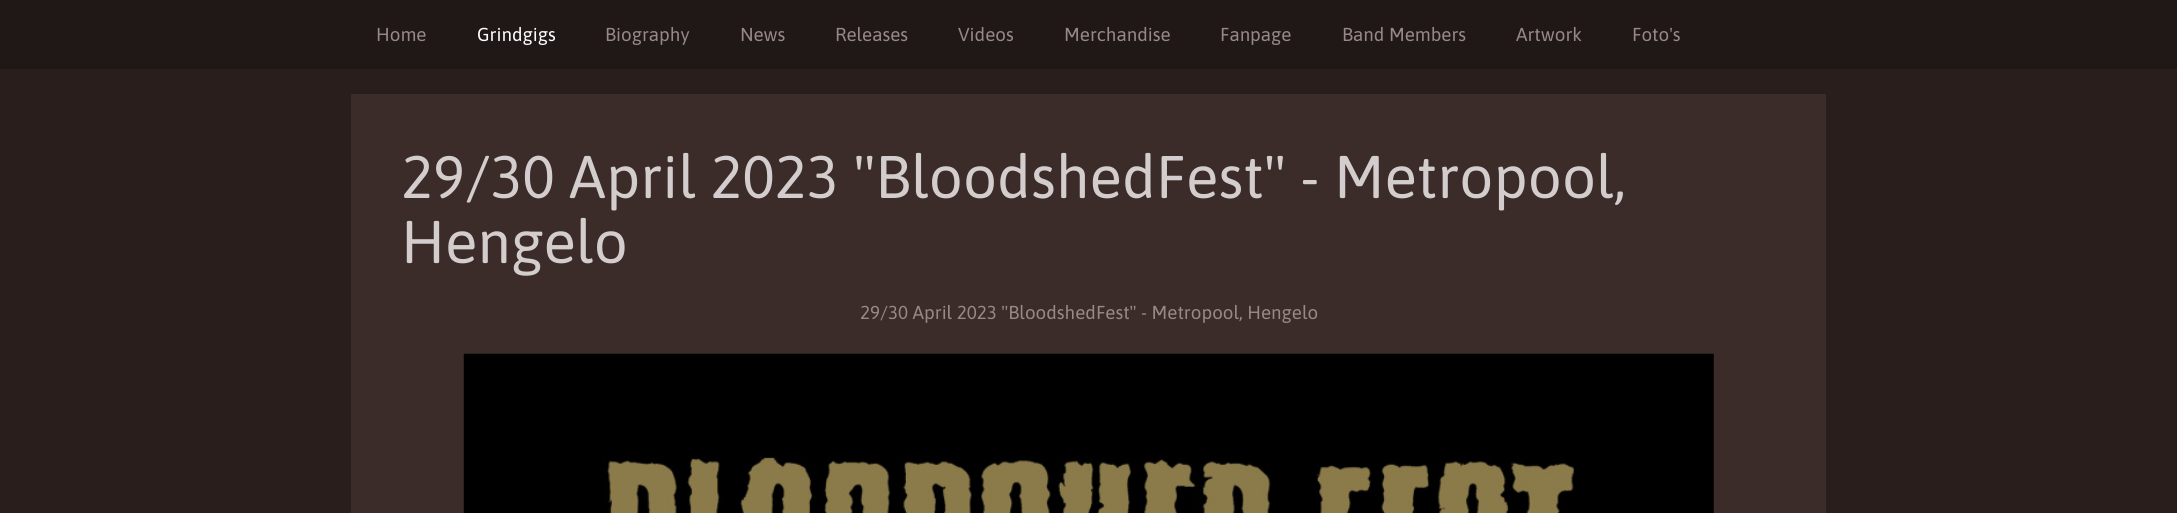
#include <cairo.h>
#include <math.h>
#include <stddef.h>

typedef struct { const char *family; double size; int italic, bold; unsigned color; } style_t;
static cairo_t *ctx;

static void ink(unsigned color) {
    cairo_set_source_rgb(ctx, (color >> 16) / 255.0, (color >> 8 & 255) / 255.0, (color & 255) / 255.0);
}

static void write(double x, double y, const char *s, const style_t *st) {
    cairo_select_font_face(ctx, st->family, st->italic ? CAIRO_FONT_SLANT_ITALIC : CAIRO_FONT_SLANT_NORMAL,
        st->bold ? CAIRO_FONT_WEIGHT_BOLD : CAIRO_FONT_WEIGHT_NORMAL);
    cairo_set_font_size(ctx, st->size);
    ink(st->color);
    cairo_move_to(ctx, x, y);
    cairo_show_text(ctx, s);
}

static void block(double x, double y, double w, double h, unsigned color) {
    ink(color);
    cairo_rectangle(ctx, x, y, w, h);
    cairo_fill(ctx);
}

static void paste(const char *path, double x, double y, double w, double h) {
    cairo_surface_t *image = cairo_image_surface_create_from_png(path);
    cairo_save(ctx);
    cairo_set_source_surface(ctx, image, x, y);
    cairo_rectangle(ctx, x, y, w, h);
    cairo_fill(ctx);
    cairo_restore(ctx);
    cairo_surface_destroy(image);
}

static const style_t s1 = {"Asap", 18.75, 0, 0, 0x988989};
static const style_t s2 = {"Asap", 18.75, 0, 0, 0xffffff};
static const style_t s3 = {"Asap", 60, 0, 0, 0xd3cdcd};

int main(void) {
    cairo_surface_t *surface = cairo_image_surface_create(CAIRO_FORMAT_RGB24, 2177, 513);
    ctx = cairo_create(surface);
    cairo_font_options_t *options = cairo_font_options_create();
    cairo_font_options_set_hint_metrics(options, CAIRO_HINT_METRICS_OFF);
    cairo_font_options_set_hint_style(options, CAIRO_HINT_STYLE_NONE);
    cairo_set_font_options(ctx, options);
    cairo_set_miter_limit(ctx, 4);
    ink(0x291e1c);
    cairo_paint(ctx);
    block(0, 0, 2177, 69, 0x201816);
    write(376, 41, "Home", &s1);
    write(477, 41, "Grindgigs", &s2);
    write(605, 41, "Biography", &s1);
    write(740, 41, "News", &s1);
    write(835, 41, "Releases", &s1);
    write(958, 41, "Videos", &s1);
    write(1064, 41, "Merchandise", &s1);
    write(1220, 41, "Fanpage", &s1);
    write(1342, 41, "Band Members", &s1);
    write(1516, 41, "Artwork", &s1);
    write(1632, 41, "Foto's", &s1);
    block(351, 94, 1475, 419, 0x3b2c29);
    write(401, 198, "29/30 April 2023 \"BloodshedFest\" - Metropool,", &s3);
    write(401, 263, "Hengelo", &s3);
    write(860, 319, "29/30 April 2023 \"BloodshedFest\" - Metropool, Hengelo", &s1);
    paste("pic1.png", 463, 353, 1251, 160);
    cairo_surface_write_to_png(surface, "screenshot.png");
    cairo_font_options_destroy(options);
    cairo_destroy(ctx);
    cairo_surface_destroy(surface);
    return 0;
}
